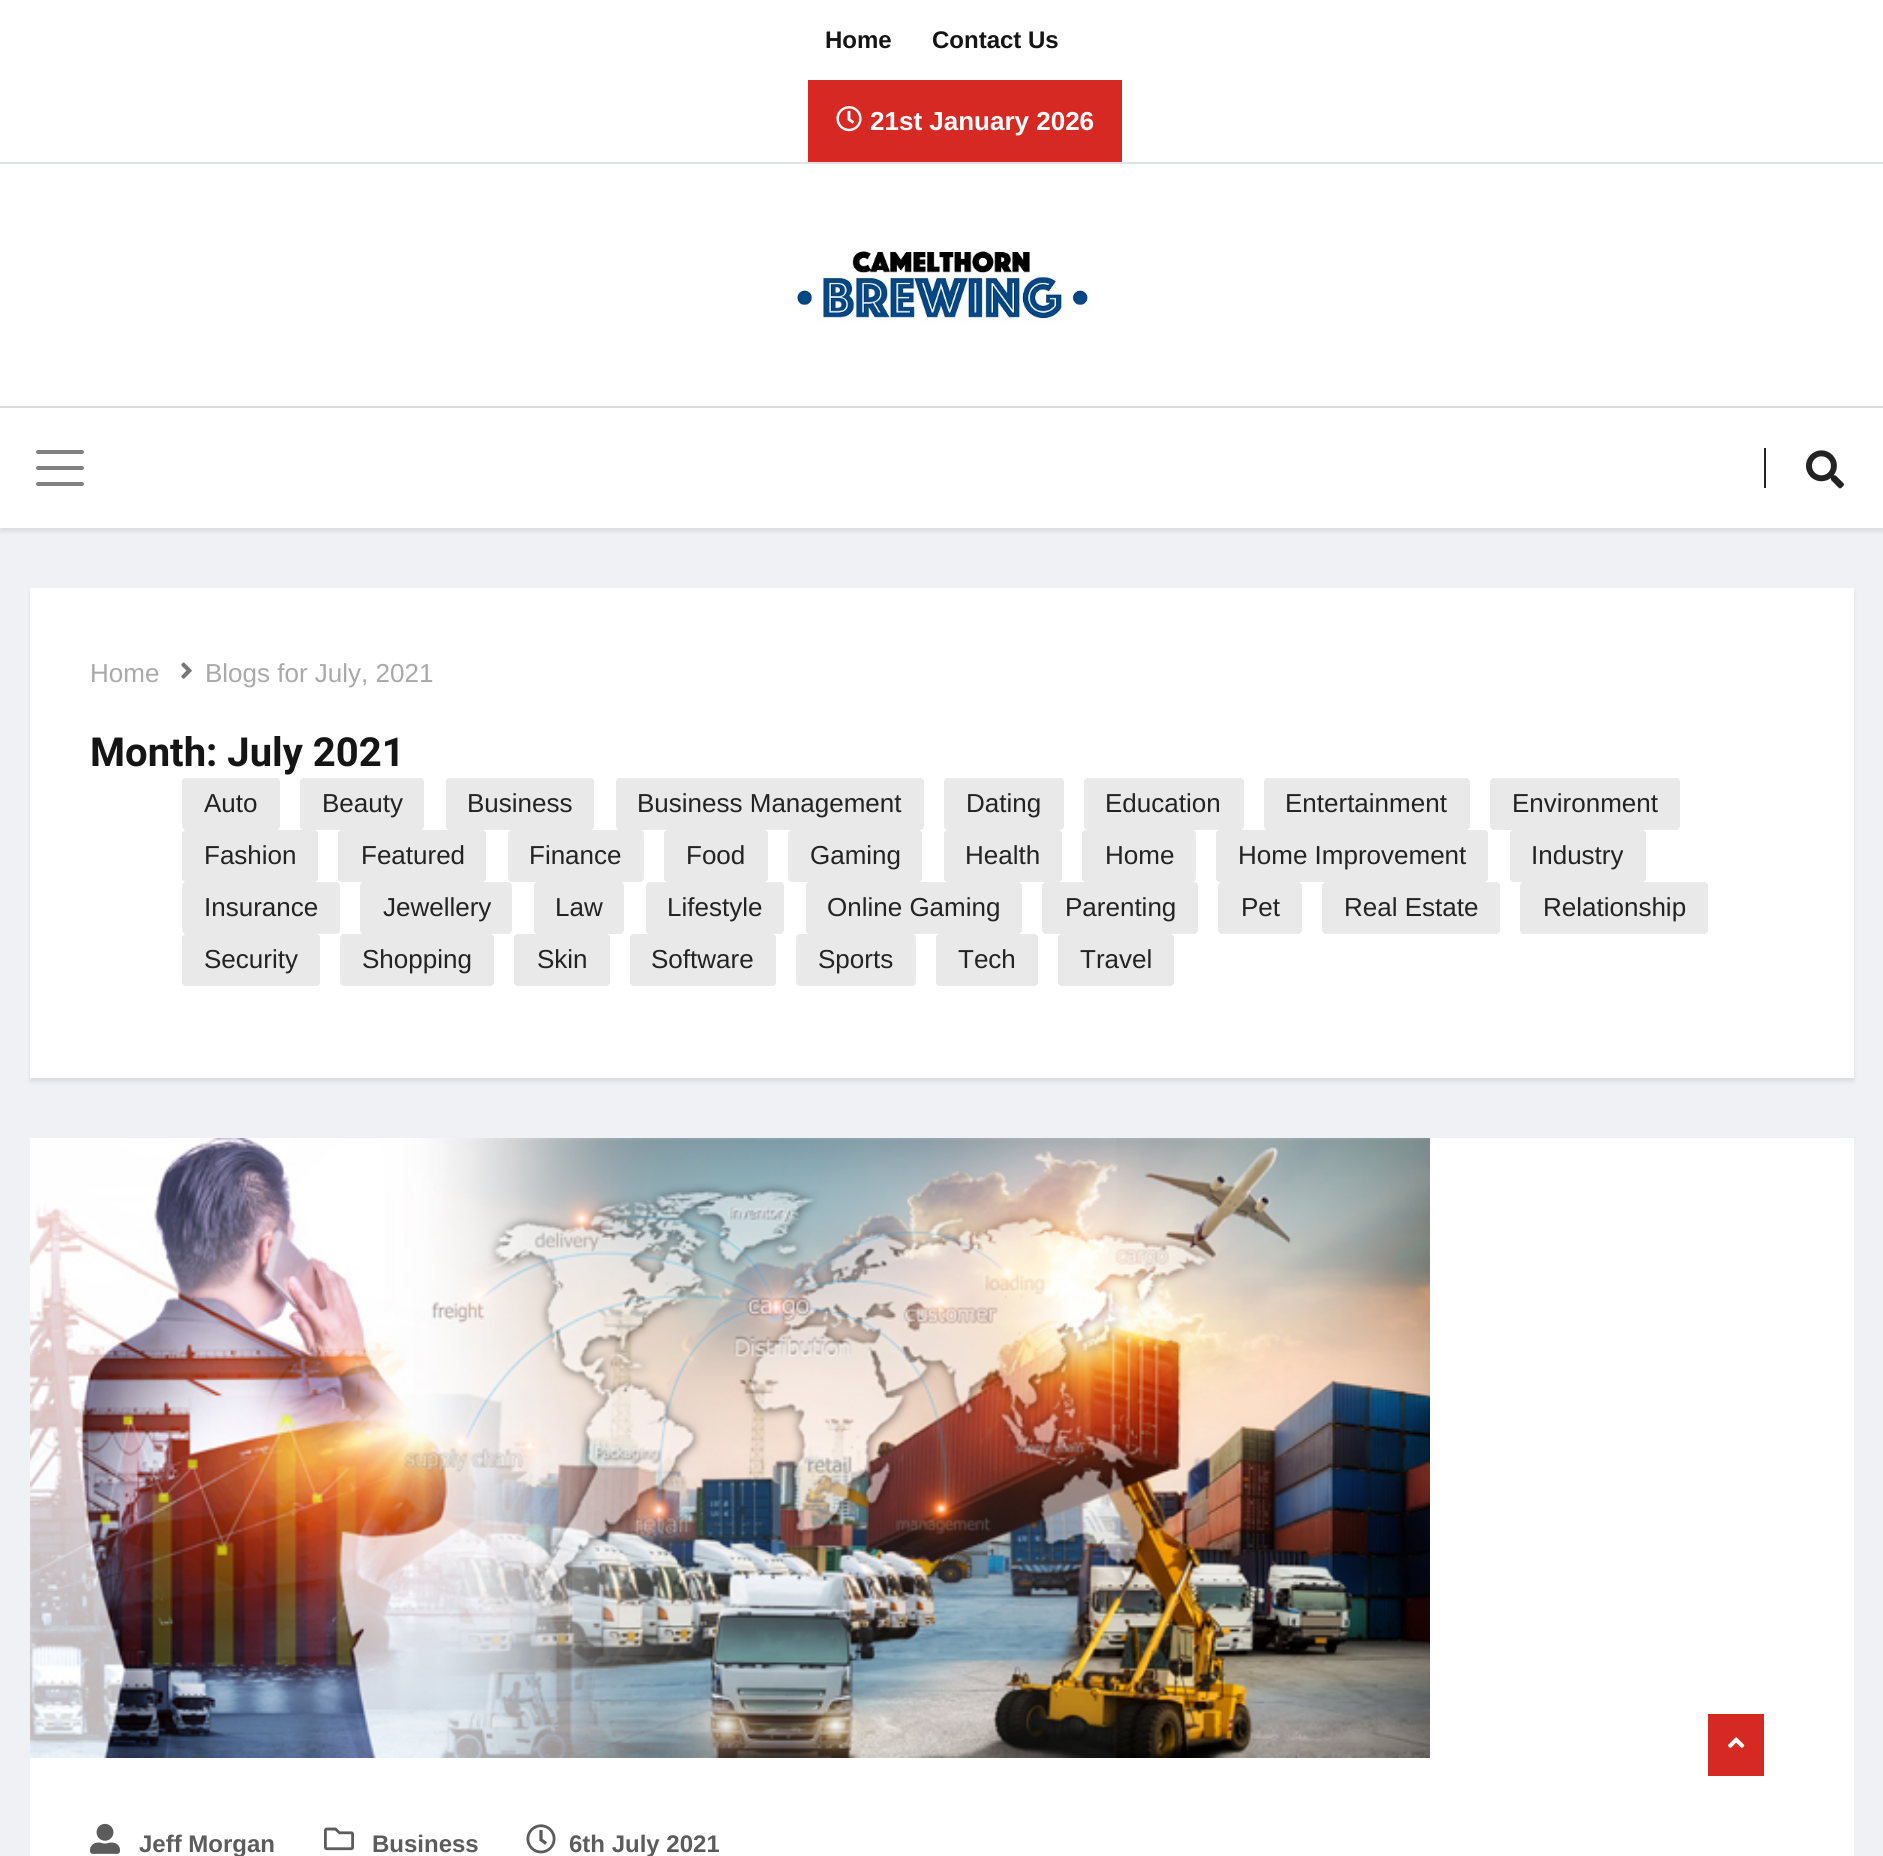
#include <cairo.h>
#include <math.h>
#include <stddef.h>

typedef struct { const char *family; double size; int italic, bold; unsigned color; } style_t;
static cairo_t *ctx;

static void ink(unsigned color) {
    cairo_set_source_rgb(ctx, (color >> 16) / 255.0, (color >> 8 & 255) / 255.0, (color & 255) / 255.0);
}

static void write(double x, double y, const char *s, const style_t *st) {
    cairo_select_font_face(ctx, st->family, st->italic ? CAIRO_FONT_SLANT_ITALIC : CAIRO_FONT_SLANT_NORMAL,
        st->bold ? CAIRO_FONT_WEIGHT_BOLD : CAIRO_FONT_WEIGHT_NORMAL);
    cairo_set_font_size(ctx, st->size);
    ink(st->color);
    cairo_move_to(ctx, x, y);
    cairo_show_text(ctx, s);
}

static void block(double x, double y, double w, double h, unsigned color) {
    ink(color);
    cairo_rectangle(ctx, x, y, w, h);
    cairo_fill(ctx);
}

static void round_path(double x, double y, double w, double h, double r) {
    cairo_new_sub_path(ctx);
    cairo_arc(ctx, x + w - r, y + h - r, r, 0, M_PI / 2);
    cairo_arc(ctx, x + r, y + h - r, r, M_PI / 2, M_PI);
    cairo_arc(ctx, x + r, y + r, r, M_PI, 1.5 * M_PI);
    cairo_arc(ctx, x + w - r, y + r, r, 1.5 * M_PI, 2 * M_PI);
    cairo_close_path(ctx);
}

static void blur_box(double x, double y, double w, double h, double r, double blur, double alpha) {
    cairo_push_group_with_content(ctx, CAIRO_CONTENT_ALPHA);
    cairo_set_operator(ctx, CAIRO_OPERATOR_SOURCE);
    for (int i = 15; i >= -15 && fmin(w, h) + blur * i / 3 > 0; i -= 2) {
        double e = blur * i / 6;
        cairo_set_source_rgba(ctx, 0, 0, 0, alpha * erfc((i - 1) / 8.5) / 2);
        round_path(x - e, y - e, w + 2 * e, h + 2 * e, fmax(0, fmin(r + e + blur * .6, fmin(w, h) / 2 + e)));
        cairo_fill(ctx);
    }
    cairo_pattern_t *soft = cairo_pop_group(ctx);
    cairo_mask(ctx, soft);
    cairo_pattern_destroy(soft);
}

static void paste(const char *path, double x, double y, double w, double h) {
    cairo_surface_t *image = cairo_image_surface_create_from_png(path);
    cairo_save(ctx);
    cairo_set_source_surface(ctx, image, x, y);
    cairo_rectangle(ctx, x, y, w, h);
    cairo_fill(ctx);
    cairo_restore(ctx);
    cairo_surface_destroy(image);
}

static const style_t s1 = {"Arimo", 24, 0, 1, 0x151515};
static const style_t s2 = {"Arimo", 26, 0, 1, 0xffffff};
static const style_t s3 = {"Arimo", 26, 0, 0, 0xa9a9a9};
static const style_t s4 = {"Heebo", 40, 0, 1, 0x151515};
static const style_t s5 = {"Arimo", 26, 0, 0, 0x232323};
static const style_t s6 = {"Arimo", 24, 0, 1, 0x5c5c5c};

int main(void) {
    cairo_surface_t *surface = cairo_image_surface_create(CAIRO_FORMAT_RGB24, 1883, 1856);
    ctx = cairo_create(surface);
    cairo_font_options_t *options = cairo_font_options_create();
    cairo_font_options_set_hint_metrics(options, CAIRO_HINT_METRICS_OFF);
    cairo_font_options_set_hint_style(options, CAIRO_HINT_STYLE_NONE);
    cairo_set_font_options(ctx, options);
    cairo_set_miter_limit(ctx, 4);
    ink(0xf0f1f4);
    cairo_paint(ctx);
    block(0, 0, 1883, 162, 0xffffff);
    write(825, 48, "Home", &s1);
    write(932, 48, "Contact Us", &s1);
    block(808, 80, 314, 82, 0xd72924);
    paste("pic1.png", 836, 106, 26, 26);
    write(870, 130, "21st January 2026", &s2);
    block(0, 164, 1883, 242, 0xffffff);
    block(0, 162, 1883, 2, 0xdee2e6);
    paste("pic2.png", 792, 251, 300, 73);
    ink(0x000000);
    blur_box(0, 410, 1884, 122, 0, 2, 0.08);
    block(0, 408, 1883, 120, 0xffffff);
    block(0, 406, 1883, 2, 0xdddddd);
    cairo_new_path(ctx);
    cairo_move_to(ctx, 38, 452);
    cairo_line_to(ctx, 82, 452);
    cairo_move_to(ctx, 38, 468);
    cairo_line_to(ctx, 82, 468);
    cairo_move_to(ctx, 38, 484);
    cairo_line_to(ctx, 82, 484);
    ink(0x808080);
    cairo_set_line_width(ctx, 4);
    cairo_set_line_cap(ctx, CAIRO_LINE_CAP_ROUND);
    cairo_stroke(ctx);
    block(1764, 448, 2, 40, 0x232323);
    paste("pic3.png", 1806, 450, 38, 39);
    ink(0x000000);
    blur_box(30, 592, 1824, 490, 0, 2, 0.08);
    block(30, 588, 1824, 490, 0xffffff);
    write(90, 682, "Home", &s3);
    paste("pic4.png", 181, 662, 11, 17);
    write(205, 682, "Blogs for July, 2021", &s3);
    write(90, 766, "Month: July 2021", &s4);
    ink(0xe9e9e9);
    round_path(182, 778, 98, 52, 4);
    cairo_fill(ctx);
    write(204, 812, "Auto", &s5);
    ink(0xe9e9e9);
    round_path(300, 778, 124, 52, 4);
    cairo_fill(ctx);
    write(322, 812, "Beauty", &s5);
    ink(0xe9e9e9);
    round_path(446, 778, 148, 52, 4);
    cairo_fill(ctx);
    write(467, 812, "Business", &s5);
    ink(0xe9e9e9);
    round_path(616, 778, 308, 52, 4);
    cairo_fill(ctx);
    write(637, 812, "Business Management", &s5);
    ink(0xe9e9e9);
    round_path(944, 778, 120, 52, 4);
    cairo_fill(ctx);
    write(966, 812, "Dating", &s5);
    ink(0xe9e9e9);
    round_path(1084, 778, 160, 52, 4);
    cairo_fill(ctx);
    write(1105, 812, "Education", &s5);
    ink(0xe9e9e9);
    round_path(1264, 778, 206, 52, 4);
    cairo_fill(ctx);
    write(1285, 812, "Entertainment", &s5);
    ink(0xe9e9e9);
    round_path(1490, 778, 190, 52, 4);
    cairo_fill(ctx);
    write(1512, 812, "Environment", &s5);
    ink(0xe9e9e9);
    round_path(182, 830, 136, 52, 4);
    cairo_fill(ctx);
    write(204, 864, "Fashion", &s5);
    ink(0xe9e9e9);
    round_path(338, 830, 148, 52, 4);
    cairo_fill(ctx);
    write(361, 864, "Featured", &s5);
    ink(0xe9e9e9);
    round_path(508, 830, 136, 52, 4);
    cairo_fill(ctx);
    write(529, 864, "Finance", &s5);
    ink(0xe9e9e9);
    round_path(664, 830, 104, 52, 4);
    cairo_fill(ctx);
    write(686, 864, "Food", &s5);
    ink(0xe9e9e9);
    round_path(788, 830, 134, 52, 4);
    cairo_fill(ctx);
    write(810, 864, "Gaming", &s5);
    ink(0xe9e9e9);
    round_path(944, 830, 118, 52, 4);
    cairo_fill(ctx);
    write(965, 864, "Health", &s5);
    ink(0xe9e9e9);
    round_path(1082, 830, 114, 52, 4);
    cairo_fill(ctx);
    write(1105, 864, "Home", &s5);
    ink(0xe9e9e9);
    round_path(1216, 830, 272, 52, 4);
    cairo_fill(ctx);
    write(1238, 864, "Home Improvement", &s5);
    ink(0xe9e9e9);
    round_path(1510, 830, 136, 52, 4);
    cairo_fill(ctx);
    write(1531, 864, "Industry", &s5);
    ink(0xe9e9e9);
    round_path(182, 882, 158, 52, 4);
    cairo_fill(ctx);
    write(204, 916, "Insurance", &s5);
    ink(0xe9e9e9);
    round_path(360, 882, 152, 52, 4);
    cairo_fill(ctx);
    write(383, 916, "Jewellery", &s5);
    ink(0xe9e9e9);
    round_path(534, 882, 90, 52, 4);
    cairo_fill(ctx);
    write(555, 916, "Law", &s5);
    ink(0xe9e9e9);
    round_path(646, 882, 138, 52, 4);
    cairo_fill(ctx);
    write(667, 916, "Lifestyle", &s5);
    ink(0xe9e9e9);
    round_path(806, 882, 216, 52, 4);
    cairo_fill(ctx);
    write(827, 916, "Online Gaming", &s5);
    ink(0xe9e9e9);
    round_path(1042, 882, 156, 52, 4);
    cairo_fill(ctx);
    write(1065, 916, "Parenting", &s5);
    ink(0xe9e9e9);
    round_path(1218, 882, 84, 52, 4);
    cairo_fill(ctx);
    write(1241, 916, "Pet", &s5);
    ink(0xe9e9e9);
    round_path(1322, 882, 178, 52, 4);
    cairo_fill(ctx);
    write(1344, 916, "Real Estate", &s5);
    ink(0xe9e9e9);
    round_path(1520, 882, 188, 52, 4);
    cairo_fill(ctx);
    write(1543, 916, "Relationship", &s5);
    ink(0xe9e9e9);
    round_path(182, 934, 138, 52, 4);
    cairo_fill(ctx);
    write(204, 968, "Security", &s5);
    ink(0xe9e9e9);
    round_path(340, 934, 154, 52, 4);
    cairo_fill(ctx);
    write(362, 968, "Shopping", &s5);
    ink(0xe9e9e9);
    round_path(514, 934, 96, 52, 4);
    cairo_fill(ctx);
    write(537, 968, "Skin", &s5);
    ink(0xe9e9e9);
    round_path(630, 934, 146, 52, 4);
    cairo_fill(ctx);
    write(651, 968, "Software", &s5);
    ink(0xe9e9e9);
    round_path(796, 934, 120, 52, 4);
    cairo_fill(ctx);
    write(818, 968, "Sports", &s5);
    ink(0xe9e9e9);
    round_path(936, 934, 102, 52, 4);
    cairo_fill(ctx);
    write(958, 968, "Tech", &s5);
    ink(0xe9e9e9);
    round_path(1058, 934, 116, 52, 4);
    cairo_fill(ctx);
    write(1080, 968, "Travel", &s5);
    block(30, 1138, 1824, 718, 0xffffff);
    paste("pic5.png", 30, 1138, 1400, 620);
    paste("pic6.png", 90, 1823, 30, 31);
    write(139, 1852, "Jeff Morgan", &s6);
    paste("pic7.png", 324, 1827, 30, 24);
    write(372, 1852, "Business", &s6);
    paste("pic8.png", 526, 1824, 30, 30);
    write(569, 1852, "6th July 2021", &s6);
    block(1708, 1714, 56, 62, 0xd72924);
    paste("pic9.png", 1728, 1737, 17, 11);
    cairo_surface_write_to_png(surface, "screenshot.png");
    cairo_font_options_destroy(options);
    cairo_destroy(ctx);
    cairo_surface_destroy(surface);
    return 0;
}
